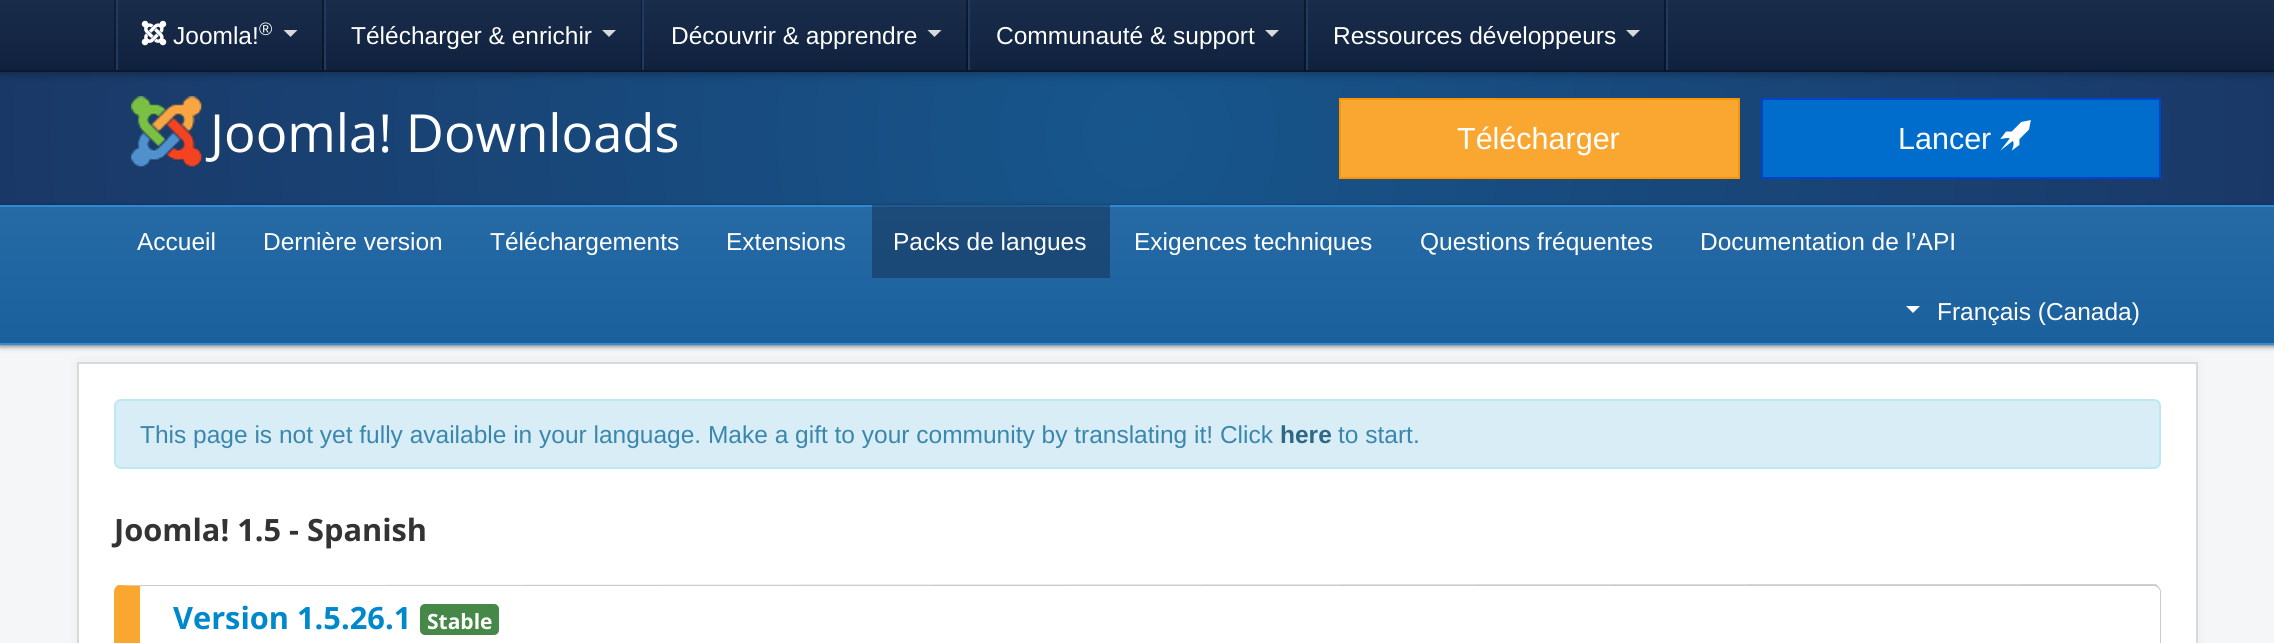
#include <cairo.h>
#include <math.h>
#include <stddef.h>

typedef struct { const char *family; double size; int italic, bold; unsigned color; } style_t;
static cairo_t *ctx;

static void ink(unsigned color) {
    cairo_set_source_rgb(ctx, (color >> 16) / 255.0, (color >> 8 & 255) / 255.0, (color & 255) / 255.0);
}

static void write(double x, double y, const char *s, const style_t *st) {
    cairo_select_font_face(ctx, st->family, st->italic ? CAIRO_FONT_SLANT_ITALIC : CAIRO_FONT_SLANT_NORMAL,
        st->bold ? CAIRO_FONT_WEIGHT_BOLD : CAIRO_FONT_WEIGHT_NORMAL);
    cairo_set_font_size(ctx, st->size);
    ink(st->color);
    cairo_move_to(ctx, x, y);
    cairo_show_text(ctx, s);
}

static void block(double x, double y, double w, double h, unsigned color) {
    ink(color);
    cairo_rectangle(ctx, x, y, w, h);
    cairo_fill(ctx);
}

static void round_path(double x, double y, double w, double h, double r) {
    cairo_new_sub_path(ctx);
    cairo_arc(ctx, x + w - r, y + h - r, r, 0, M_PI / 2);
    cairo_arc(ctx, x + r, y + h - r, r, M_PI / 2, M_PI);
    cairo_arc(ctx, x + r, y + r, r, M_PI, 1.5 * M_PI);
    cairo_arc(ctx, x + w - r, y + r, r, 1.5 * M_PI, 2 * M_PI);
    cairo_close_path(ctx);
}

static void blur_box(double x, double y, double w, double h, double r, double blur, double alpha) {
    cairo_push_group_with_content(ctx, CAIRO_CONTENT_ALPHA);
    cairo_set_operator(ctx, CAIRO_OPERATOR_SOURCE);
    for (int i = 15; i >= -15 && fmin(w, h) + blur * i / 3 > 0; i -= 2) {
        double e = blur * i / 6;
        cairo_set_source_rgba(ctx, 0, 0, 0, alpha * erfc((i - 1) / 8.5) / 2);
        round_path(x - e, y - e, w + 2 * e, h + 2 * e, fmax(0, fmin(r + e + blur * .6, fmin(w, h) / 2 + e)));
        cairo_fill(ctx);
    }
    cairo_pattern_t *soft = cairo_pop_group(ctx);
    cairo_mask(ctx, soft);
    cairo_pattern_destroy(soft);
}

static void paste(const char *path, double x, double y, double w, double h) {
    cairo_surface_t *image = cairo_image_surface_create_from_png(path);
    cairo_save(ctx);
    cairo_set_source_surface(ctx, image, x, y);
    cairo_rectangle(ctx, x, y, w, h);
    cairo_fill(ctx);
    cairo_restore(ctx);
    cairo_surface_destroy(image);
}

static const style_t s1 = {"Liberation Sans", 24.5, 0, 0, 0xffffff};
static const style_t s2 = {"Liberation Sans", 18, 0, 0, 0xffffff};
static const style_t s3 = {"Open Sans", 52.5, 0, 0, 0xffffff};
static const style_t s4 = {"Liberation Sans", 30.5, 0, 0, 0xffffff};
static const style_t s5 = {"Liberation Sans", 24.5, 0, 0, 0x3a87ad};
static const style_t s6 = {"Liberation Sans", 24.5, 0, 1, 0x2d6987};
static const style_t s7 = {"Open Sans", 30.75, 0, 1, 0x333333};
static const style_t s8 = {"Open Sans", 30.75, 0, 1, 0x0088cc};
static const style_t s9 = {"Open Sans", 21, 0, 1, 0xffffff};

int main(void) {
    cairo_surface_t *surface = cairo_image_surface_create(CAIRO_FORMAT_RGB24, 2274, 643);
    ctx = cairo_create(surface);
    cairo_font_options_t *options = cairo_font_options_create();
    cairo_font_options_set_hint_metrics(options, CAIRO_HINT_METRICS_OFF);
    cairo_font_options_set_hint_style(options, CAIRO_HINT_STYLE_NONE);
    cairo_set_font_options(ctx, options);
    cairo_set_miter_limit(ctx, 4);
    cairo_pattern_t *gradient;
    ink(0xf4f6f7);
    cairo_paint(ctx);
    gradient = cairo_pattern_create_radial(1138, 135, 0, 1138, 135, 1140);
    cairo_pattern_add_color_stop_rgba(gradient, 0, 0.09, 0.337, 0.549, 1);
    cairo_pattern_add_color_stop_rgba(gradient, 1, 0.102, 0.22, 0.404, 1);
    cairo_set_source(ctx, gradient);
    cairo_pattern_destroy(gradient);
    cairo_rectangle(ctx, 0, 72, 2274, 133);
    cairo_fill(ctx);
    ink(0x000000);
    blur_box(0, 2, 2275, 72, 0, 4.5, 0.3);
    gradient = cairo_pattern_create_linear(1138, 0, 1138, 70);
    cairo_pattern_add_color_stop_rgba(gradient, 0, 0.098, 0.173, 0.29, 1);
    cairo_pattern_add_color_stop_rgba(gradient, 1, 0.063, 0.133, 0.243, 1);
    cairo_set_source(ctx, gradient);
    cairo_pattern_destroy(gradient);
    cairo_rectangle(ctx, 0, 0, 2274, 70);
    cairo_fill(ctx);
    gradient = cairo_pattern_create_linear(1138, 0, 1138, 70);
    cairo_pattern_add_color_stop_rgba(gradient, 0, 0.059, 0.102, 0.173, 1);
    cairo_pattern_add_color_stop_rgba(gradient, 1, 0.039, 0.078, 0.145, 1);
    cairo_set_source(ctx, gradient);
    cairo_pattern_destroy(gradient);
    cairo_rectangle(ctx, 1664, 0, 2, 70);
    cairo_fill(ctx);
    cairo_rectangle(ctx, 1304, 0, 2, 70);
    cairo_fill(ctx);
    cairo_rectangle(ctx, 966, 0, 2, 70);
    cairo_fill(ctx);
    cairo_rectangle(ctx, 641, 0, 1, 70);
    cairo_fill(ctx);
    gradient = cairo_pattern_create_linear(1138, 0, 1138, 70);
    cairo_pattern_add_color_stop_rgba(gradient, 0, 0.071, 0.122, 0.204, 1);
    cairo_pattern_add_color_stop_rgba(gradient, 1, 0.043, 0.094, 0.169, 1);
    cairo_set_source(ctx, gradient);
    cairo_pattern_destroy(gradient);
    cairo_rectangle(ctx, 114, 0, 2, 70);
    cairo_fill(ctx);
    gradient = cairo_pattern_create_linear(1138, 0, 1138, 70);
    cairo_pattern_add_color_stop_rgba(gradient, 0, 0.059, 0.102, 0.173, 1);
    cairo_pattern_add_color_stop_rgba(gradient, 1, 0.039, 0.078, 0.145, 1);
    cairo_set_source(ctx, gradient);
    cairo_pattern_destroy(gradient);
    cairo_rectangle(ctx, 322, 0, 2, 70);
    cairo_fill(ctx);
    block(0, 70, 2274, 2, 0x0b172a);
    block(116, 0, 2, 70, 0x1e3b63);
    block(324, 0, 2, 70, 0x1e3b63);
    paste("pic1.png", 141, 20, 26, 26);
    write(173, 44, "Joomla!", &s1);
    write(259, 35, "®", &s2);
    ink(0xd9d9d9);
    cairo_new_path(ctx);
    cairo_move_to(ctx, 283.5, 30);
    cairo_line_to(ctx, 297.5, 30);
    cairo_line_to(ctx, 290.5, 37);
    cairo_close_path(ctx);
    cairo_fill(ctx);
    block(642, 0, 2, 70, 0x1e3b63);
    write(351, 44, "Télécharger & enrichir", &s1);
    ink(0xd9d9d9);
    cairo_new_path(ctx);
    cairo_move_to(ctx, 602, 30);
    cairo_line_to(ctx, 616, 30);
    cairo_line_to(ctx, 609, 37);
    cairo_close_path(ctx);
    cairo_fill(ctx);
    block(968, 0, 2, 70, 0x1e3b63);
    write(671, 44, "Découvrir & apprendre", &s1);
    ink(0xd9d9d9);
    cairo_new_path(ctx);
    cairo_move_to(ctx, 927.5, 30);
    cairo_line_to(ctx, 941.5, 30);
    cairo_line_to(ctx, 934.5, 37);
    cairo_close_path(ctx);
    cairo_fill(ctx);
    block(1306, 0, 2, 70, 0x1e3b63);
    write(996, 44, "Communauté & support", &s1);
    ink(0xd9d9d9);
    cairo_new_path(ctx);
    cairo_move_to(ctx, 1265, 30);
    cairo_line_to(ctx, 1279, 30);
    cairo_line_to(ctx, 1272, 37);
    cairo_close_path(ctx);
    cairo_fill(ctx);
    block(1666, 0, 2, 70, 0x1e3b63);
    write(1333, 44, "Ressources développeurs", &s1);
    ink(0xd9d9d9);
    cairo_new_path(ctx);
    cairo_move_to(ctx, 1626, 30);
    cairo_line_to(ctx, 1640, 30);
    cairo_line_to(ctx, 1633, 37);
    cairo_close_path(ctx);
    cairo_fill(ctx);
    paste("pic2.png", 131, 96, 71, 71);
    write(210, 152, "Joomla! Downloads", &s3);
    ink(0xfaa732);
    cairo_rectangle(ctx, 1340, 99, 399, 79);
    cairo_fill_preserve(ctx);
    ink(0xf89406);
    cairo_stroke(ctx);
    write(1457, 149, "Télécharger", &s4);
    ink(0x006dcc);
    cairo_rectangle(ctx, 1762, 99, 398, 79);
    cairo_fill_preserve(ctx);
    ink(0x0044cc);
    cairo_stroke(ctx);
    write(1898, 149, "Lancer", &s4);
    paste("pic3.png", 2000, 120, 31, 31);
    ink(0x000000);
    blur_box(0, 205, 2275, 140, 0, 1, 0.2);
    blur_box(0, 207, 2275, 140, 0, 2.5, 0.4);
    gradient = cairo_pattern_create_linear(1138, 345, 1138, 205);
    cairo_pattern_add_color_stop_rgba(gradient, 0, 0.102, 0.376, 0.612, 1);
    cairo_pattern_add_color_stop_rgba(gradient, 1, 0.149, 0.42, 0.651, 1);
    cairo_set_source(ctx, gradient);
    cairo_pattern_destroy(gradient);
    cairo_rectangle(ctx, 0, 207, 2274, 136);
    cairo_fill(ctx);
    gradient = cairo_pattern_create_linear(1138, 345, 1138, 205);
    cairo_pattern_add_color_stop_rgba(gradient, 0, 0.09, 0.271, 0.455, 1);
    cairo_pattern_add_color_stop_rgba(gradient, 1, 0.114, 0.294, 0.475, 1);
    cairo_set_source(ctx, gradient);
    cairo_pattern_destroy(gradient);
    cairo_rectangle(ctx, 872, 207, 238, 71);
    cairo_fill(ctx);
    block(0, 343, 2274, 2, 0x368ad8);
    block(0, 205, 2274, 2, 0x2f89d3);
    block(872, 205, 238, 2, 0x215a90);
    write(137, 250, "Accueil", &s1);
    write(263, 250, "Dernière version", &s1);
    write(490, 250, "Téléchargements", &s1);
    write(726, 250, "Extensions", &s1);
    write(893, 250, "Packs de langues", &s1);
    write(1134, 250, "Exigences techniques", &s1);
    write(1420, 250, "Questions fréquentes", &s1);
    write(1700, 250, "Documentation de l’API", &s1);
    cairo_new_path(ctx);
    cairo_move_to(ctx, 1906, 306);
    cairo_line_to(ctx, 1920, 306);
    cairo_line_to(ctx, 1913, 313);
    cairo_close_path(ctx);
    cairo_fill(ctx);
    write(1937, 320, "Français (Canada)", &s1);
    ink(0x000000);
    blur_box(77, 362, 2121, 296, 0, 5, 0.05);
    ink(0xffffff);
    cairo_rectangle(ctx, 78, 363, 2119, 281);
    cairo_fill_preserve(ctx);
    ink(0xd9d9d9);
    cairo_stroke(ctx);
    ink(0xd9edf7);
    round_path(115, 400, 2045, 68, 6);
    cairo_fill_preserve(ctx);
    ink(0xbce8f1);
    cairo_stroke(ctx);
    write(140, 443, "This page is not yet fully available in your language. Make a gift to your community by translating it! Click", &s5);
    write(1280, 443, "here", &s6);
    write(1338, 443, "to start.", &s5);
    write(114, 541, "Joomla! 1.5 - Spanish", &s7);
    ink(0xcccccc);
    cairo_new_path(ctx);
    cairo_move_to(ctx, 140, 586);
    cairo_line_to(ctx, 118, 585);
    cairo_line_to(ctx, 2156, 584);
    cairo_line_to(ctx, 2159, 587);
    cairo_line_to(ctx, 2158, 588);
    cairo_curve_to(ctx, 2157, 587, 2155, 586, 2154, 586);
    cairo_close_path(ctx);
    cairo_fill(ctx);
    cairo_new_path(ctx);
    cairo_move_to(ctx, 2159, 587);
    cairo_curve_to(ctx, 2160, 588, 2161, 590, 2161, 592);
    cairo_line_to(ctx, 2161, 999);
    cairo_curve_to(ctx, 2161, 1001, 2160, 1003, 2159, 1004);
    cairo_line_to(ctx, 2158, 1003);
    cairo_line_to(ctx, 2160, 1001);
    cairo_line_to(ctx, 2160, 592);
    cairo_curve_to(ctx, 2160, 590, 2159, 589, 2158, 588);
    cairo_close_path(ctx);
    cairo_fill(ctx);
    ink(0xfaa732);
    cairo_new_path(ctx);
    cairo_move_to(ctx, 120, 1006);
    cairo_curve_to(ctx, 116, 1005, 114, 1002, 114, 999);
    cairo_line_to(ctx, 114, 592);
    cairo_curve_to(ctx, 114, 589, 116, 586, 118, 585);
    cairo_line_to(ctx, 140, 586);
    cairo_line_to(ctx, 140, 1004);
    cairo_line_to(ctx, 148, 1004);
    cairo_close_path(ctx);
    cairo_fill(ctx);
    write(173, 629, "Version 1.5.26.1", &s8);
    ink(0x468847);
    round_path(420, 604, 79, 31, 5);
    cairo_fill(ctx);
    write(427, 629, "Stable", &s9);
    cairo_surface_write_to_png(surface, "screenshot.png");
    cairo_font_options_destroy(options);
    cairo_destroy(ctx);
    cairo_surface_destroy(surface);
    return 0;
}
